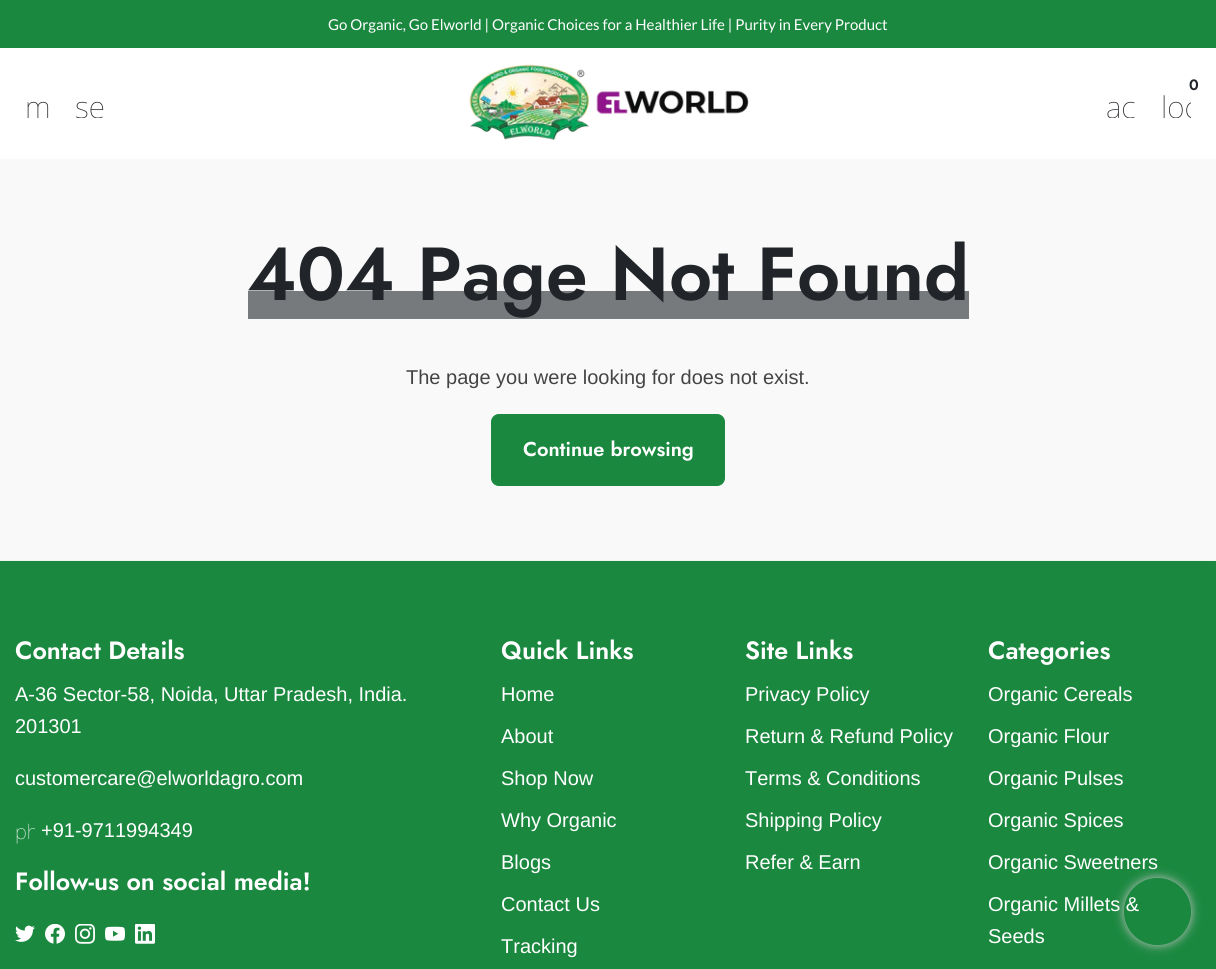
#include <cairo.h>
#include <math.h>
#include <stddef.h>

typedef struct { const char *family; double size; int italic, bold; unsigned color; } style_t;
static cairo_t *ctx;

static void ink(unsigned color) {
    cairo_set_source_rgb(ctx, (color >> 16) / 255.0, (color >> 8 & 255) / 255.0, (color & 255) / 255.0);
}

static void write(double x, double y, const char *s, const style_t *st) {
    cairo_select_font_face(ctx, st->family, st->italic ? CAIRO_FONT_SLANT_ITALIC : CAIRO_FONT_SLANT_NORMAL,
        st->bold ? CAIRO_FONT_WEIGHT_BOLD : CAIRO_FONT_WEIGHT_NORMAL);
    cairo_set_font_size(ctx, st->size);
    ink(st->color);
    cairo_move_to(ctx, x, y);
    cairo_show_text(ctx, s);
}

static void block(double x, double y, double w, double h, unsigned color) {
    ink(color);
    cairo_rectangle(ctx, x, y, w, h);
    cairo_fill(ctx);
}

static void round_path(double x, double y, double w, double h, double r) {
    cairo_new_sub_path(ctx);
    cairo_arc(ctx, x + w - r, y + h - r, r, 0, M_PI / 2);
    cairo_arc(ctx, x + r, y + h - r, r, M_PI / 2, M_PI);
    cairo_arc(ctx, x + r, y + r, r, M_PI, 1.5 * M_PI);
    cairo_arc(ctx, x + w - r, y + r, r, 1.5 * M_PI, 2 * M_PI);
    cairo_close_path(ctx);
}

static void blur_box(double x, double y, double w, double h, double r, double blur, double alpha) {
    cairo_push_group_with_content(ctx, CAIRO_CONTENT_ALPHA);
    cairo_set_operator(ctx, CAIRO_OPERATOR_SOURCE);
    for (int i = 15; i >= -15 && fmin(w, h) + blur * i / 3 > 0; i -= 2) {
        double e = blur * i / 6;
        cairo_set_source_rgba(ctx, 0, 0, 0, alpha * erfc((i - 1) / 8.5) / 2);
        round_path(x - e, y - e, w + 2 * e, h + 2 * e, fmax(0, fmin(r + e + blur * .6, fmin(w, h) / 2 + e)));
        cairo_fill(ctx);
    }
    cairo_pattern_t *soft = cairo_pop_group(ctx);
    cairo_mask(ctx, soft);
    cairo_pattern_destroy(soft);
}

static void paste(const char *path, double x, double y, double w, double h) {
    cairo_surface_t *image = cairo_image_surface_create_from_png(path);
    cairo_save(ctx);
    cairo_set_source_surface(ctx, image, x, y);
    cairo_rectangle(ctx, x, y, w, h);
    cairo_fill(ctx);
    cairo_restore(ctx);
    cairo_surface_destroy(image);
}

static const style_t s1 = {"Lato", 15, 0, 0, 0xffffff};
static const style_t s2 = {"Noto Sans Thin", 30, 0, 0, 0x212529};
static const style_t s3 = {"Jost SemiBold", 15, 0, 0, 0x212529};
static const style_t s4 = {"Jost SemiBold", 75, 0, 0, 0x212529};
static const style_t s5 = {"Liberation Sans", 20, 0, 0, 0x444444};
static const style_t s6 = {"Jost SemiBold", 20, 0, 0, 0xffffff};
static const style_t s7 = {"Jost SemiBold", 25, 0, 0, 0xffffff};
static const style_t s8 = {"Liberation Sans", 20, 0, 0, 0xffffff};
static const style_t s9 = {"Noto Sans Thin", 20, 0, 0, 0xffffff};

int main(void) {
    cairo_surface_t *surface = cairo_image_surface_create(CAIRO_FORMAT_RGB24, 1216, 969);
    ctx = cairo_create(surface);
    cairo_font_options_t *options = cairo_font_options_create();
    cairo_font_options_set_hint_metrics(options, CAIRO_HINT_METRICS_OFF);
    cairo_font_options_set_hint_style(options, CAIRO_HINT_STYLE_NONE);
    cairo_set_font_options(ctx, options);
    cairo_set_miter_limit(ctx, 4);
    ink(0xf9f9f9);
    cairo_paint(ctx);
    block(0, 0, 1216, 48, 0x1a883f);
    write(328, 30, "Go Organic, Go Elworld | Organic Choices for a Healthier Life | Purity in Every Product", &s1);
    block(0, 48, 1216, 111, 0xffffff);
    write(25, 118, "m", &s2);
    cairo_save(ctx);
    cairo_rectangle(ctx, 75, 88, 30, 30);
    cairo_clip(ctx);
    write(75, 118, "se", &s2);
    cairo_restore(ctx);
    paste("pic1.png", 469, 64, 280, 76);
    cairo_save(ctx);
    cairo_rectangle(ctx, 1106, 88, 30, 30);
    cairo_clip(ctx);
    write(1106, 118, "ac", &s2);
    cairo_restore(ctx);
    write(1189, 90, "0", &s3);
    cairo_save(ctx);
    cairo_rectangle(ctx, 1161, 88, 30, 30);
    cairo_clip(ctx);
    write(1161, 118, "loc", &s2);
    cairo_restore(ctx);
    block(248, 291, 721, 28, 0x777a7c);
    write(247, 300, "404 Page Not Found", &s4);
    write(406, 384, "The page you were looking for does not exist.", &s5);
    ink(0x1a883f);
    round_path(491.5, 414.5, 233, 71, 7.5);
    cairo_fill_preserve(ctx);
    cairo_set_line_width(ctx, 1);
    cairo_stroke(ctx);
    write(523, 456, "Continue browsing", &s6);
    block(0, 561, 1216, 408, 0x1a883f);
    paste("pic2.png", 0, 560, 1216, 1);
    write(15, 659, "Contact Details", &s7);
    write(15, 701, "A-36 Sector-58, Noida, Uttar Pradesh, India.", &s8);
    write(15, 733, "201301", &s8);
    write(15, 785, "customercare@elworldagro.com", &s8);
    cairo_save(ctx);
    cairo_rectangle(ctx, 15, 814, 20, 32);
    cairo_clip(ctx);
    write(15, 839, "ph", &s9);
    cairo_restore(ctx);
    write(41, 837, "+91-9711994349", &s8);
    write(15, 890, "Follow-us on social media!", &s7);
    paste("pic3.png", 15, 925, 20, 17);
    paste("pic4.png", 45, 924, 20, 20);
    paste("pic5.png", 75, 924, 20, 20);
    paste("pic6.png", 105, 926, 20, 15);
    paste("pic7.png", 135, 924, 20, 20);
    write(501, 659, "Quick Links", &s7);
    write(501, 701, "Home", &s8);
    write(501, 743, "About", &s8);
    write(501, 785, "Shop Now", &s8);
    write(501, 827, "Why Organic", &s8);
    write(501, 869, "Blogs", &s8);
    write(501, 911, "Contact Us", &s8);
    write(501, 953, "Tracking", &s8);
    write(745, 659, "Site Links", &s7);
    write(745, 701, "Privacy Policy", &s8);
    write(745, 743, "Return & Refund Policy", &s8);
    write(745, 785, "Terms & Conditions", &s8);
    write(745, 827, "Shipping Policy", &s8);
    write(745, 869, "Refer & Earn", &s8);
    write(988, 659, "Categories", &s7);
    write(988, 701, "Organic Cereals", &s8);
    write(988, 743, "Organic Flour", &s8);
    write(988, 785, "Organic Pulses", &s8);
    write(988, 827, "Organic Spices", &s8);
    write(988, 869, "Organic Sweetners", &s8);
    write(988, 911, "Organic Millets &", &s8);
    write(988, 943, "Seeds", &s8);
    cairo_save(ctx);
    cairo_set_fill_rule(ctx, CAIRO_FILL_RULE_EVEN_ODD);
    cairo_new_path(ctx);
    cairo_move_to(ctx, 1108, 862);
    cairo_line_to(ctx, 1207, 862);
    cairo_line_to(ctx, 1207, 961);
    cairo_line_to(ctx, 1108, 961);
    cairo_close_path(ctx);
    cairo_move_to(ctx, 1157.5, 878);
    cairo_curve_to(ctx, 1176, 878, 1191, 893, 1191, 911.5);
    cairo_curve_to(ctx, 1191, 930, 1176, 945, 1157.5, 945);
    cairo_curve_to(ctx, 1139, 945, 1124, 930, 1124, 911.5);
    cairo_curve_to(ctx, 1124, 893, 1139, 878, 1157.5, 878);
    cairo_close_path(ctx);
    cairo_clip(ctx);
    ink(0xc2c2c2);
    blur_box(1124, 878, 67, 67, 33.5, 5, 1);
    cairo_restore(ctx);
    cairo_surface_write_to_png(surface, "screenshot.png");
    cairo_font_options_destroy(options);
    cairo_destroy(ctx);
    cairo_surface_destroy(surface);
    return 0;
}
